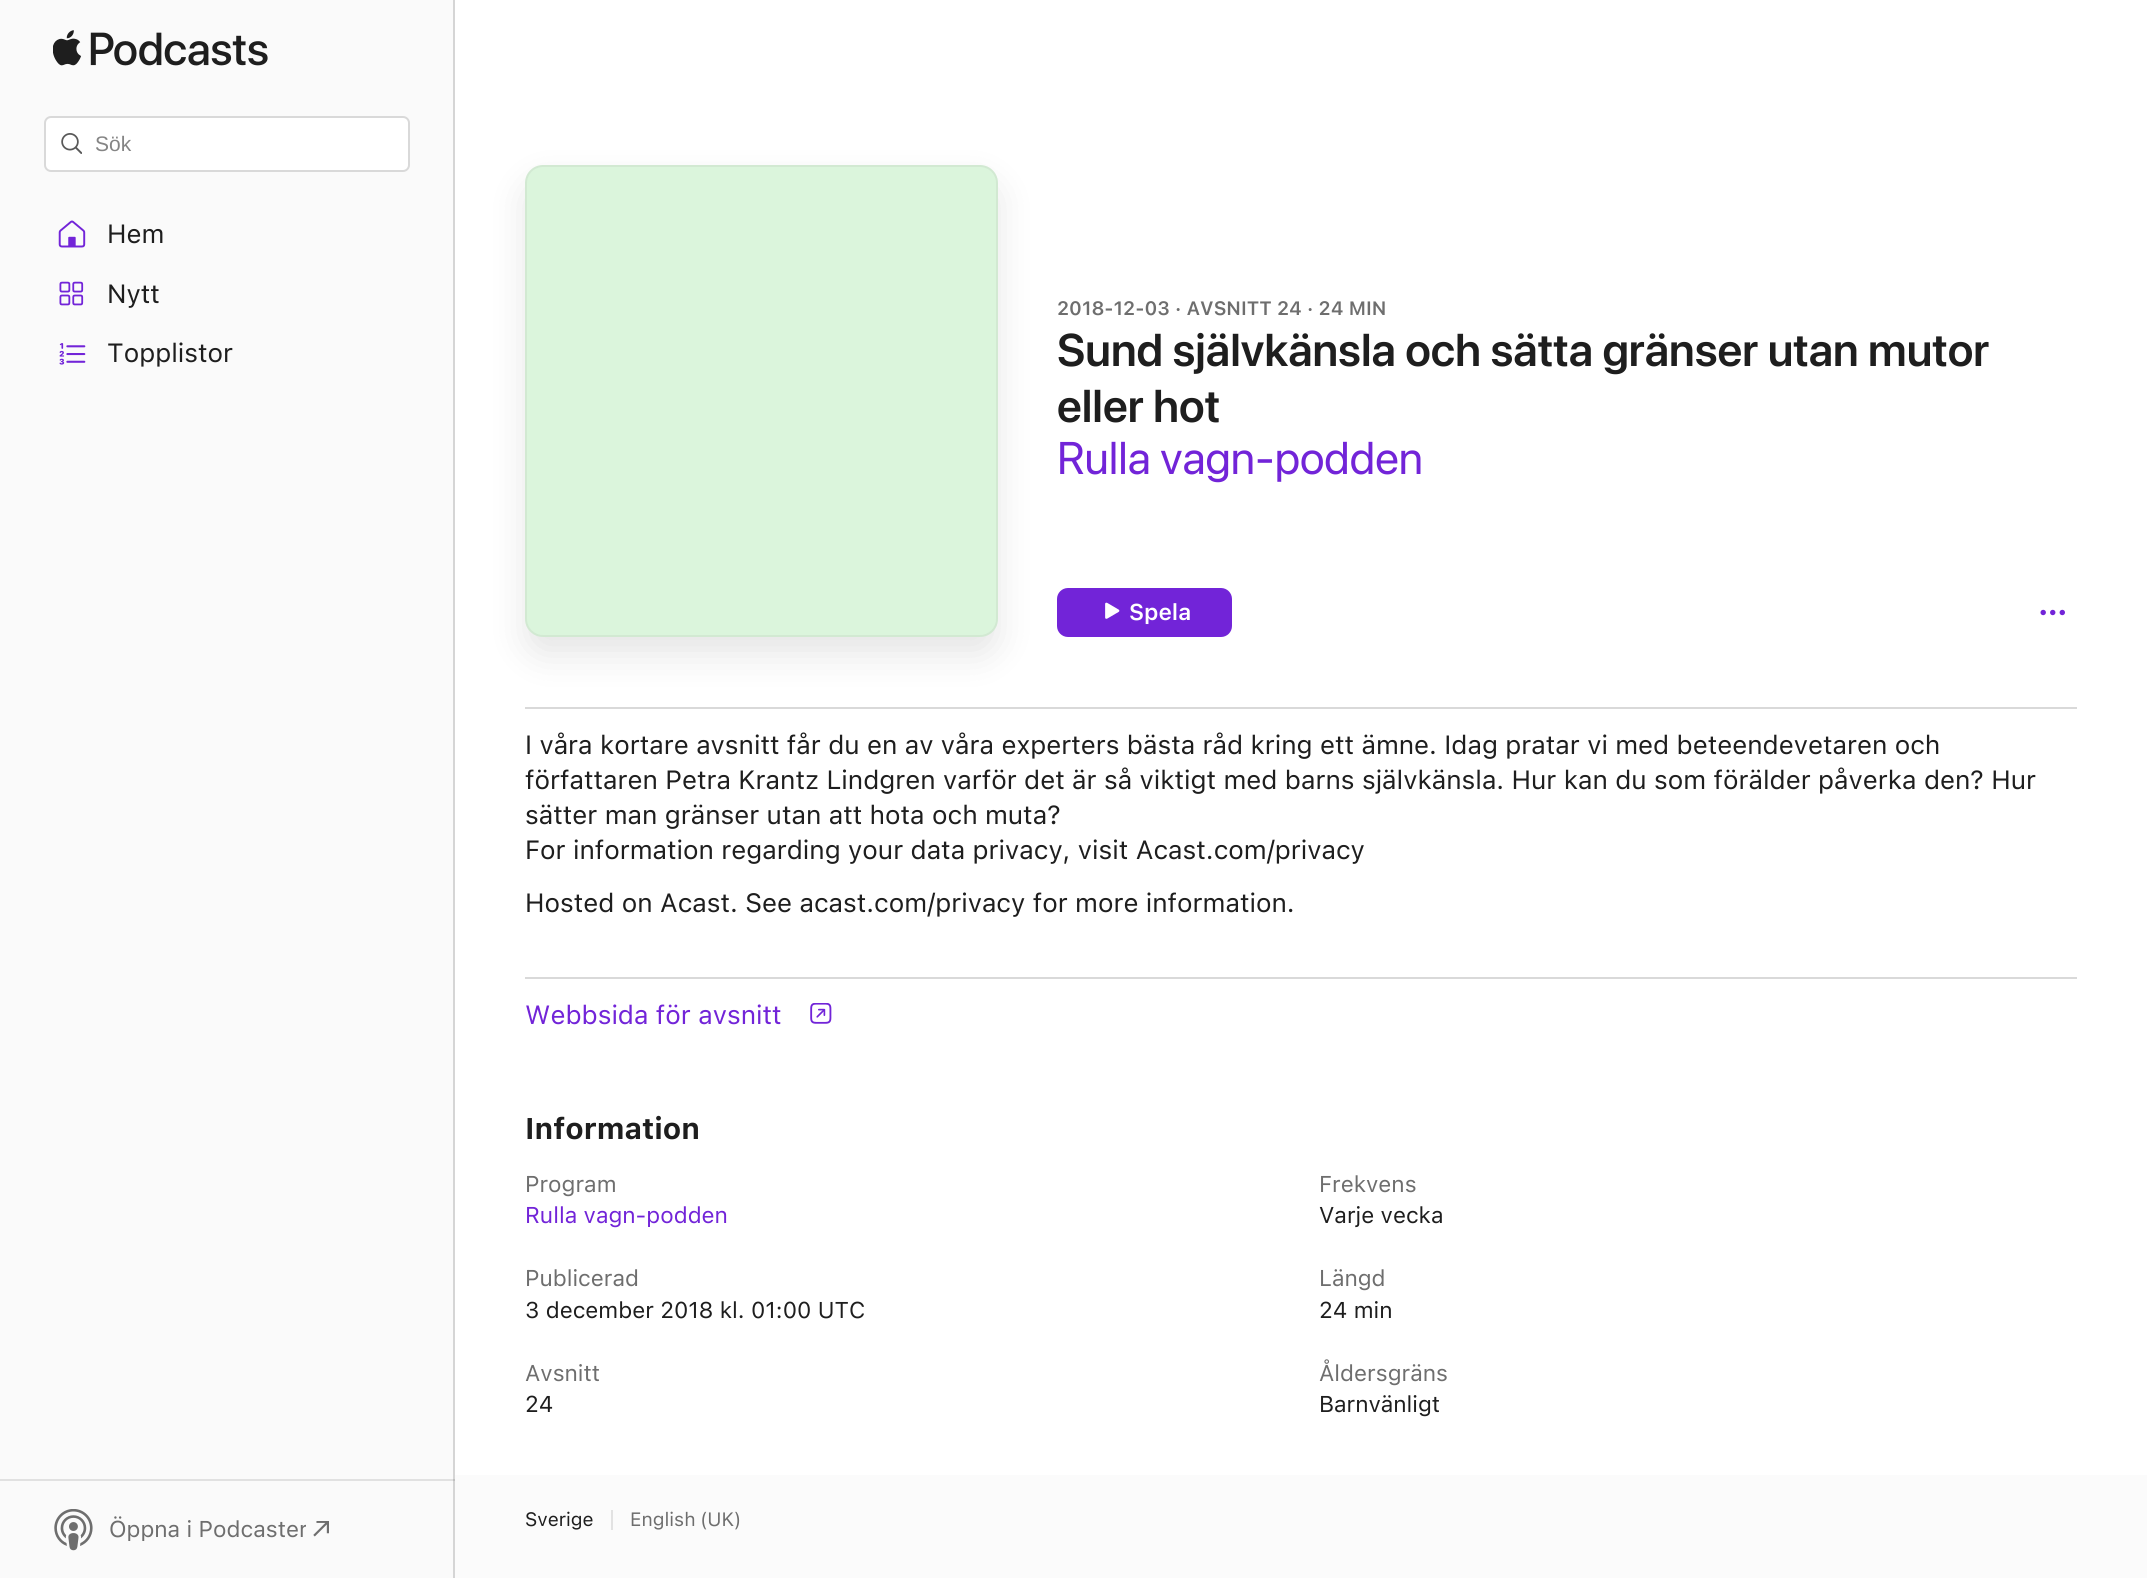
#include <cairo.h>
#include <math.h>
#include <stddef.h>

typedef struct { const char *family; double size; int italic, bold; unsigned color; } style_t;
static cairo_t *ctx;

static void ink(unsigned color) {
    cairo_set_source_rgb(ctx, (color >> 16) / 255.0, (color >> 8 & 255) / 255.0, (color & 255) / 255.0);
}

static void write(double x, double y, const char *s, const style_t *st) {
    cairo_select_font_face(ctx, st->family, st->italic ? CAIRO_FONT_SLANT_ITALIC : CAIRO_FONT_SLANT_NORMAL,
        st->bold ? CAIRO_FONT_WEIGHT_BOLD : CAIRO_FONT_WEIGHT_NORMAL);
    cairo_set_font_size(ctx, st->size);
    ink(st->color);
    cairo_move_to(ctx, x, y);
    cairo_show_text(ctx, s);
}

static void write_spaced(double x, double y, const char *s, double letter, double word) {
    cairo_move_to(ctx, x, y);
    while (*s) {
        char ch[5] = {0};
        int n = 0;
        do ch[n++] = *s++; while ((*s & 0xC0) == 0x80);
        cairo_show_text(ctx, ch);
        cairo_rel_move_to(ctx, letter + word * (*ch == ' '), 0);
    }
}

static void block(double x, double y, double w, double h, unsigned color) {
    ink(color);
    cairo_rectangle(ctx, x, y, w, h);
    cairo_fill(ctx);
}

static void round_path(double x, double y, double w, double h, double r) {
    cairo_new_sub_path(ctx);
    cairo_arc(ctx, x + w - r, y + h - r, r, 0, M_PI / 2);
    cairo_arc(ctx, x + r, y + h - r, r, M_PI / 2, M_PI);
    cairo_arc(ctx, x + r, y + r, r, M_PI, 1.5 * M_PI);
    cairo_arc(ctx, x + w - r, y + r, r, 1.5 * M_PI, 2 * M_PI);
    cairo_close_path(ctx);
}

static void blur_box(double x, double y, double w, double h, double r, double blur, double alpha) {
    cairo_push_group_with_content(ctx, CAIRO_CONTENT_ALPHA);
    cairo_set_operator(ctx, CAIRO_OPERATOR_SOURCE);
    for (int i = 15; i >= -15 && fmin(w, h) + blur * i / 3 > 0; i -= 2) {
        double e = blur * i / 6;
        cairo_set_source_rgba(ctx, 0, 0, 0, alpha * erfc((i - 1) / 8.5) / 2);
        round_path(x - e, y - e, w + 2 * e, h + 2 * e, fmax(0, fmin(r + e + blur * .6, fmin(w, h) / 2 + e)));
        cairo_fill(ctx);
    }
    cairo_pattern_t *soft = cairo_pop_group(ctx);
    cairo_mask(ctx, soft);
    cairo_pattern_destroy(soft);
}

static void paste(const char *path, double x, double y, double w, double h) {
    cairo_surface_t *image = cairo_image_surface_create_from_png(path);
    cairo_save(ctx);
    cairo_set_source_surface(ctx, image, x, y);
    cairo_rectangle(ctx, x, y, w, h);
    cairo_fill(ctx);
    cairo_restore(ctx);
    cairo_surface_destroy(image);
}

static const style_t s1 = {"Liberation Sans", 21, 0, 0, 0x858585};
static const style_t s2 = {"SF", 26.25, 0, 0, 0x1e1e1e};
static const style_t s3 = {"SF", 22.75, 0, 0, 0x6e6e6e};
static const style_t s4 = {"SF SemiBold", 19.25, 0, 0, 0x6e6e6e};
static const style_t s5 = {"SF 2 SemiBold", 45.5, 0, 0, 0x1e1e1e};
static const style_t s6 = {"SF 2", 45.5, 0, 0, 0x7224d8};
static const style_t s7 = {"SF SemiBold", 22.75, 0, 0, 0xffffff};
static const style_t s8 = {"SF", 26.25, 0, 0, 0x7224d8};
static const style_t s9 = {"SF", 29.75, 0, 1, 0x1e1e1e};
static const style_t s10 = {"SF", 22.75, 0, 0, 0x7224d8};
static const style_t s11 = {"SF", 22.75, 0, 0, 0x1e1e1e};
static const style_t s12 = {"SF", 19.25, 0, 0, 0x1e1e1e};

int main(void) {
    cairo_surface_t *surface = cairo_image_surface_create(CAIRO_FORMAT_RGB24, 2147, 1578);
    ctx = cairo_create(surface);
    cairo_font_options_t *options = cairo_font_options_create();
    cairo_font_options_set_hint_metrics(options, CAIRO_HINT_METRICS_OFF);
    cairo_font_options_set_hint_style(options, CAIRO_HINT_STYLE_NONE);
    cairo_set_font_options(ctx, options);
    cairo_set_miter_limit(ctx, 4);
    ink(0xffffff);
    cairo_paint(ctx);
    block(0, 0, 453, 1578, 0xfafafa);
    block(0, 1479, 455, 2, 0xe1e1e1);
    block(453, 0, 2, 1578, 0xd5d5d5);
    block(453, 1479, 2, 2, 0xc0c0c0);
    paste("pic1.png", 53, 30, 215, 36);
    ink(0xffffff);
    round_path(45, 117, 364, 54, 6);
    cairo_fill_preserve(ctx);
    ink(0xd9d9d9);
    cairo_stroke(ctx);
    paste("pic2.png", 61, 133, 21, 21);
    write(95, 151, "Sök", &s1);
    paste("pic3.png", 58, 220, 28, 28);
    write(107, 243, "Hem", &s2);
    paste("pic4.png", 59, 281, 25, 25);
    write(107, 303, "Nytt", &s2);
    paste("pic5.png", 59, 343, 27, 22);
    write(107, 362, "Topplistor", &s2);
    paste("pic6.png", 54, 1509, 39, 42);
    cairo_save(ctx);
    cairo_rectangle(ctx, 109, 1512, 197, 35);
    cairo_clip(ctx);
    write(109, 1537, "Öppna i Podcaster", &s3);
    cairo_restore(ctx);
    paste("pic7.png", 313, 1521, 16, 16);
    block(525, 707, 1552, 2, 0xd9d9d9);
    ink(0x000000);
    blur_box(525, 182, 473, 473, 18, 17.5, 0.1);
    ink(0xdbf5dc);
    round_path(525, 165, 473, 472, 18);
    cairo_fill(ctx);
    round_path(526, 166, 471, 470, 17);
    cairo_set_source_rgba(ctx, 0.502, 0.502, 0.502, 0.1);
    cairo_stroke(ctx);
    write(1057, 315, "2018-12-03 · AVSNITT 24 · 24 MIN", &s4);
    write(1057, 366, "Sund självkänsla och sätta gränser utan mutor", &s5);
    write(1057, 422, "eller hot", &s5);
    write(1057, 474, "Rulla vagn-podden", &s6);
    round_path(1057, 588, 175, 49, 11);
    cairo_fill(ctx);
    paste("pic8.png", 1105, 602, 15, 17);
    write(1129, 620, "Spela", &s7);
    paste("pic9.png", 2040, 609, 25, 7);
    write(525, 754, "I våra kortare avsnitt får du en av våra experters bästa råd kring ett ämne. Idag pratar vi med beteendevetaren och", &s2);
    write(525, 789, "författaren Petra Krantz Lindgren varför det är så viktigt med barns självkänsla. Hur kan du som förälder påverka den? Hur", &s2);
    write(525, 824, "sätter man gränser utan att hota och muta?", &s2);
    write(525, 859, "For information regarding your data privacy, visit Acast.com/privacy", &s2);
    write(525, 912, "Hosted on Acast. See acast.com/privacy for more information.", &s2);
    block(525, 977, 1552, 2, 0xd9d9d9);
    write(525, 1024, "Webbsida för avsnitt", &s8);
    paste("pic10.png", 810, 1003, 22, 21);
    write(525, 1139, "Information", &s9);
    write(525, 1192, "Program", &s3);
    write(525, 1223, "Rulla vagn-podden", &s10);
    write(1319, 1192, "Frekvens", &s3);
    write(1319, 1223, "Varje vecka", &s11);
    write(525, 1286, "Publicerad", &s3);
    write(525, 1318, "3 december 2018 kl. 01:00 UTC", &s11);
    write(1319, 1286, "Längd", &s3);
    write(1319, 1318, "24 min", &s11);
    write(525, 1381, "Avsnitt", &s3);
    write(525, 1412, "24", &s11);
    write(1319, 1381, "Åldersgräns", &s3);
    write(1319, 1412, "Barnvänligt", &s11);
    block(455, 1475, 1692, 103, 0xfbfbfb);
    write(525, 1526, "Sverige", &s12);
    block(611, 1510, 2, 20, 0xe2e2e2);
    ink(0x6e6e6e);
    write_spaced(630, 1526, "English (UK)", 0, -1);
    cairo_surface_write_to_png(surface, "screenshot.png");
    cairo_font_options_destroy(options);
    cairo_destroy(ctx);
    cairo_surface_destroy(surface);
    return 0;
}
